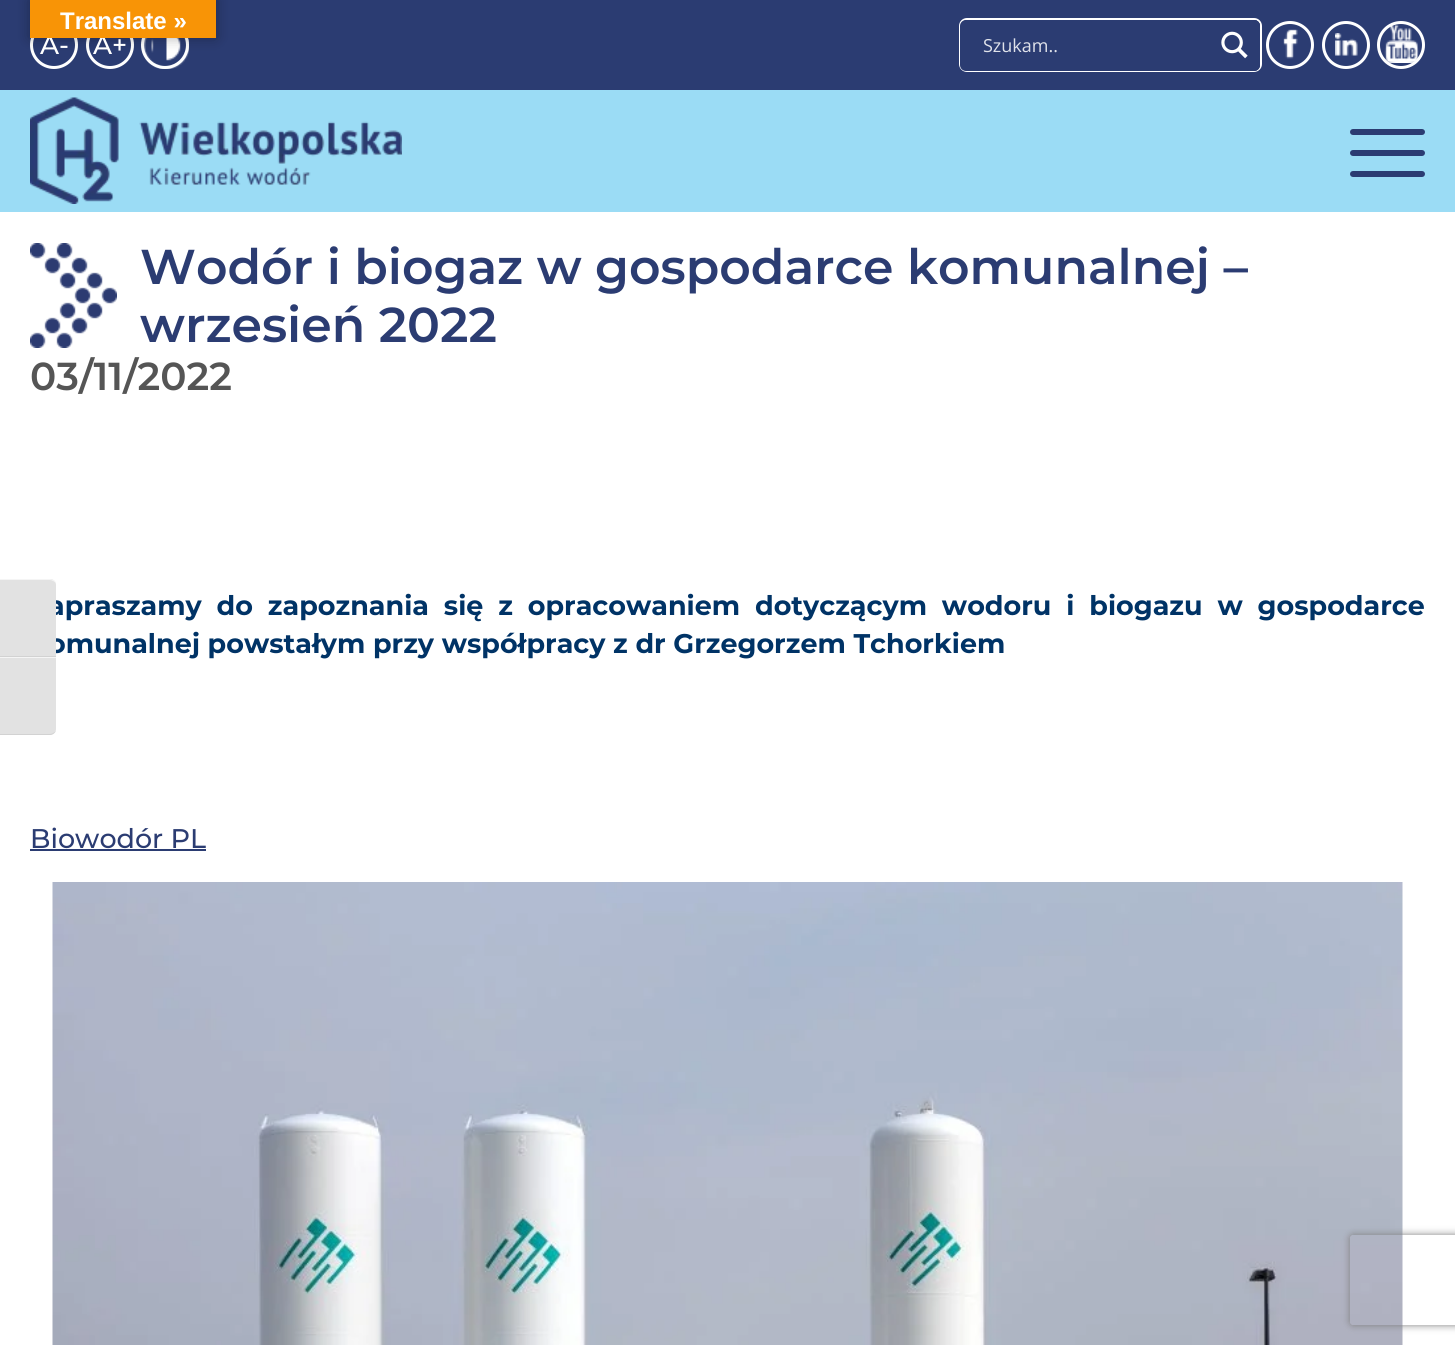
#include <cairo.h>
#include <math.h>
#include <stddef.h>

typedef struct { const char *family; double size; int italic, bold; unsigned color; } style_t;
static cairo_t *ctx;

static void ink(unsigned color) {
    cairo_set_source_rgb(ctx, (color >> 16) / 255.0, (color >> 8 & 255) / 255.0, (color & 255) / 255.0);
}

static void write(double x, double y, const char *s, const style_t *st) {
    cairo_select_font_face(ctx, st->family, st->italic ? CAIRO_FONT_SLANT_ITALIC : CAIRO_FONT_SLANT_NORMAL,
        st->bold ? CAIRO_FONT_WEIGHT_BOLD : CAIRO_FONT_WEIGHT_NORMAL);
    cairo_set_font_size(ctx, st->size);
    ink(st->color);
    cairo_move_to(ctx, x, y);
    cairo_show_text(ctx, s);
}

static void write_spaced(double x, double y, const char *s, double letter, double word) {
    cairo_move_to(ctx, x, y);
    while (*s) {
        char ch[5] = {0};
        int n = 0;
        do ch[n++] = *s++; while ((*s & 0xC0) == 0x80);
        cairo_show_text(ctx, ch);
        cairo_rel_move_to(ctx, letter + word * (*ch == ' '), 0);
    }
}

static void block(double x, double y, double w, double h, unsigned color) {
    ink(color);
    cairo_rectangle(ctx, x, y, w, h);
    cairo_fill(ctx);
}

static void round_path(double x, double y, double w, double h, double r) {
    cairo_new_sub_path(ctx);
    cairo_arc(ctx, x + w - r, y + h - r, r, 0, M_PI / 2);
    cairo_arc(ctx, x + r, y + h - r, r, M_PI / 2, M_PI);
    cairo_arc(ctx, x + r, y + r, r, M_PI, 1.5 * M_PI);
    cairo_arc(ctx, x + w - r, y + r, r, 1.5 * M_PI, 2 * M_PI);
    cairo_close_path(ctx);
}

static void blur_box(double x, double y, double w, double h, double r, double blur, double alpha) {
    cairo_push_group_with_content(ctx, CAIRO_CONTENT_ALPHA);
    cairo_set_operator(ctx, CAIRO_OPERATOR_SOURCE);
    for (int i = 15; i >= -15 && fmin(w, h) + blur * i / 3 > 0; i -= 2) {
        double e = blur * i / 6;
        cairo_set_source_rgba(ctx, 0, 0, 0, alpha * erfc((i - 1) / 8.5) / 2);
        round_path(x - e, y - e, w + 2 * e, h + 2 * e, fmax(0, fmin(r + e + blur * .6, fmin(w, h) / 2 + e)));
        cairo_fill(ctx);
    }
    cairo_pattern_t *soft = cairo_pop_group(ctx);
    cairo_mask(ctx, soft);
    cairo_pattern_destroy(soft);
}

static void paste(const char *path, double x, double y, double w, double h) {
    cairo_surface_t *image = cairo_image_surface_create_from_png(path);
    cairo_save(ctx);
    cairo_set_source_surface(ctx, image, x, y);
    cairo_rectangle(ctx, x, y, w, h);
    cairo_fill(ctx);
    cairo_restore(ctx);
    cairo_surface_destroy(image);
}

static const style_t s1 = {"Montserrat Medium", 26, 0, 0, 0xffffff};
static const style_t s2 = {"Liberation Sans", 24, 0, 1, 0xffffff};
static const style_t s3 = {"Open Sans", 18, 0, 0, 0xdfe2ea};
static const style_t s4 = {"Montserrat", 27, 0, 1, 0x003366};
static const style_t s5 = {"Montserrat SemiBold", 48.9, 0, 0, 0x2b3c72};
static const style_t s6 = {"Montserrat SemiBold", 39, 0, 0, 0x555555};
static const style_t s7 = {"Montserrat Medium", 27, 0, 0, 0x2b3c72};

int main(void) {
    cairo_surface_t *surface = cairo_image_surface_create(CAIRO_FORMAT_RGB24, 1455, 1345);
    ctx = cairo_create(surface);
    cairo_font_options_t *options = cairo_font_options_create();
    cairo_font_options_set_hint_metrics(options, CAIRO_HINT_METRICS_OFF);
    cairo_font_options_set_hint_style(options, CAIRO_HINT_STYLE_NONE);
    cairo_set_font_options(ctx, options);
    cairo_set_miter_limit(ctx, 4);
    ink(0xffffff);
    cairo_paint(ctx);
    block(0, 0, 1455, 90, 0x2b3c72);
    cairo_arc(ctx, 54, 45, 22.5, 0, 2 * M_PI);
    ink(0xffffff);
    cairo_set_line_width(ctx, 3);
    cairo_stroke(ctx);
    cairo_arc(ctx, 110, 45, 22.5, 0, 2 * M_PI);
    cairo_stroke(ctx);
    cairo_arc(ctx, 165, 45, 22.5, 0, 2 * M_PI);
    cairo_stroke(ctx);
    paste("pic1.png", 142, 38, 47, 31);
    ink(0x000000);
    blur_box(30, 0, 186, 38, 0, 7, 0.3);
    write(40, 54, "A-", &s1);
    write(93, 54, "A+", &s1);
    block(30, 0, 186, 38, 0xf89406);
    write(60, 29, "Translate »", &s2);
    block(0, 90, 1455, 122, 0x9bdcf5);
    round_path(960, 19, 301, 52, 7);
    ink(0xffffff);
    cairo_set_line_width(ctx, 2);
    cairo_stroke(ctx);
    ink(0x2b3c72);
    round_path(960, 20, 300, 51, 6);
    cairo_fill(ctx);
    write(983, 52, "Szukam..", &s3);
    ink(0x2b3c72);
    cairo_new_path(ctx);
    cairo_move_to(ctx, 1209, 20);
    cairo_line_to(ctx, 1254, 20);
    cairo_curve_to(ctx, 1257.5, 20, 1260, 22.5, 1260, 26);
    cairo_line_to(ctx, 1260, 65);
    cairo_curve_to(ctx, 1260, 68.5, 1257.5, 71, 1254, 71);
    cairo_line_to(ctx, 1209, 71);
    cairo_close_path(ctx);
    cairo_fill(ctx);
    paste("pic2.png", 1221, 31, 27, 28);
    cairo_arc(ctx, 1290, 45, 22.5, 0, 2 * M_PI);
    ink(0xffffff);
    cairo_set_line_width(ctx, 3);
    cairo_stroke(ctx);
    paste("pic3.png", 1283, 29, 15, 30);
    cairo_arc(ctx, 1346, 45, 22.5, 0, 2 * M_PI);
    cairo_stroke(ctx);
    paste("pic4.png", 1335, 33, 23, 23);
    cairo_arc(ctx, 1401, 45, 22.5, 0, 2 * M_PI);
    cairo_stroke(ctx);
    paste("pic5.png", 1384, 25, 35, 38);
    paste("pic6.png", 30, 97, 372, 107);
    ink(0x2b3c72);
    round_path(1350, 129, 75, 6, 3);
    cairo_fill(ctx);
    round_path(1350, 150, 75, 6, 3);
    cairo_fill(ctx);
    round_path(1350, 171, 75, 6, 3);
    cairo_fill(ctx);
    cairo_select_font_face(ctx, "Montserrat", CAIRO_FONT_SLANT_NORMAL, CAIRO_FONT_WEIGHT_BOLD);
    cairo_set_font_size(ctx, 27);
    ink(0x003366);
    write_spaced(48, 615, "apraszamy do zapoznania się z opracowaniem dotyczącym wodoru i biogazu w gospodarce", 0, 7.25);
    write(48, 653, "omunalnej powstałym przy współpracy z dr Grzegorzem Tchorkiem", &s4);
    ink(0xe2e2e2);
    cairo_new_path(ctx);
    cairo_move_to(ctx, 0, 579);
    cairo_line_to(ctx, 50, 579);
    cairo_curve_to(ctx, 53.5, 579, 56, 581.5, 56, 585);
    cairo_line_to(ctx, 56, 657);
    cairo_line_to(ctx, 0, 657);
    cairo_close_path(ctx);
    cairo_fill(ctx);
    ink(0xf5f5f5);
    cairo_new_path(ctx);
    cairo_move_to(ctx, 0, 579);
    cairo_line_to(ctx, 0, 580);
    cairo_line_to(ctx, 50, 580);
    cairo_curve_to(ctx, 52, 580, 55, 582, 56, 583);
    cairo_curve_to(ctx, 56, 581, 52, 579, 50, 579);
    cairo_close_path(ctx);
    cairo_fill(ctx);
    block(0, 656, 56, 1, 0xd2d2d2);
    ink(0xe2e2e2);
    cairo_new_path(ctx);
    cairo_move_to(ctx, 0, 657);
    cairo_line_to(ctx, 56, 657);
    cairo_line_to(ctx, 56, 729);
    cairo_curve_to(ctx, 56, 732.5, 53.5, 735, 50, 735);
    cairo_line_to(ctx, 0, 735);
    cairo_close_path(ctx);
    cairo_fill(ctx);
    block(0, 657, 56, 1, 0xf5f5f5);
    ink(0xd2d2d2);
    cairo_new_path(ctx);
    cairo_move_to(ctx, 0, 734);
    cairo_line_to(ctx, 0, 735);
    cairo_line_to(ctx, 50, 735);
    cairo_curve_to(ctx, 52, 735, 55, 733, 56, 731);
    cairo_curve_to(ctx, 55, 732, 52, 734, 50, 734);
    cairo_close_path(ctx);
    cairo_fill(ctx);
    paste("pic7.png", 30, 243, 87, 105);
    write(140, 284, "Wodór i biogaz w gospodarce komunalnej –", &s5);
    write(140, 342, "wrzesień 2022", &s5);
    write(30, 390, "03/11/2022", &s6);
    write(30, 848, "Biowodór PL", &s7);
    block(30, 849, 176, 2, 0x2b3c72);
    paste("pic8.png", 52, 882, 1351, 463);
    cairo_save(ctx);
    cairo_set_fill_rule(ctx, CAIRO_FILL_RULE_EVEN_ODD);
    cairo_new_path(ctx);
    cairo_move_to(ctx, 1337, 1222);
    cairo_line_to(ctx, 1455, 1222);
    cairo_line_to(ctx, 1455, 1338);
    cairo_line_to(ctx, 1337, 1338);
    cairo_close_path(ctx);
    cairo_move_to(ctx, 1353, 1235);
    cairo_line_to(ctx, 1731, 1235);
    cairo_curve_to(ctx, 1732.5, 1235, 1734, 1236.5, 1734, 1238);
    cairo_line_to(ctx, 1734, 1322);
    cairo_curve_to(ctx, 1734, 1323.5, 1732.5, 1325, 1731, 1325);
    cairo_line_to(ctx, 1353, 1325);
    cairo_curve_to(ctx, 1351.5, 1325, 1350, 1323.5, 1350, 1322);
    cairo_line_to(ctx, 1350, 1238);
    cairo_curve_to(ctx, 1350, 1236.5, 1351.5, 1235, 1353, 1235);
    cairo_close_path(ctx);
    cairo_clip(ctx);
    ink(0x808080);
    blur_box(1350, 1235, 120, 90, 3, 4, 1);
    cairo_restore(ctx);
    cairo_surface_write_to_png(surface, "screenshot.png");
    cairo_font_options_destroy(options);
    cairo_destroy(ctx);
    cairo_surface_destroy(surface);
    return 0;
}
